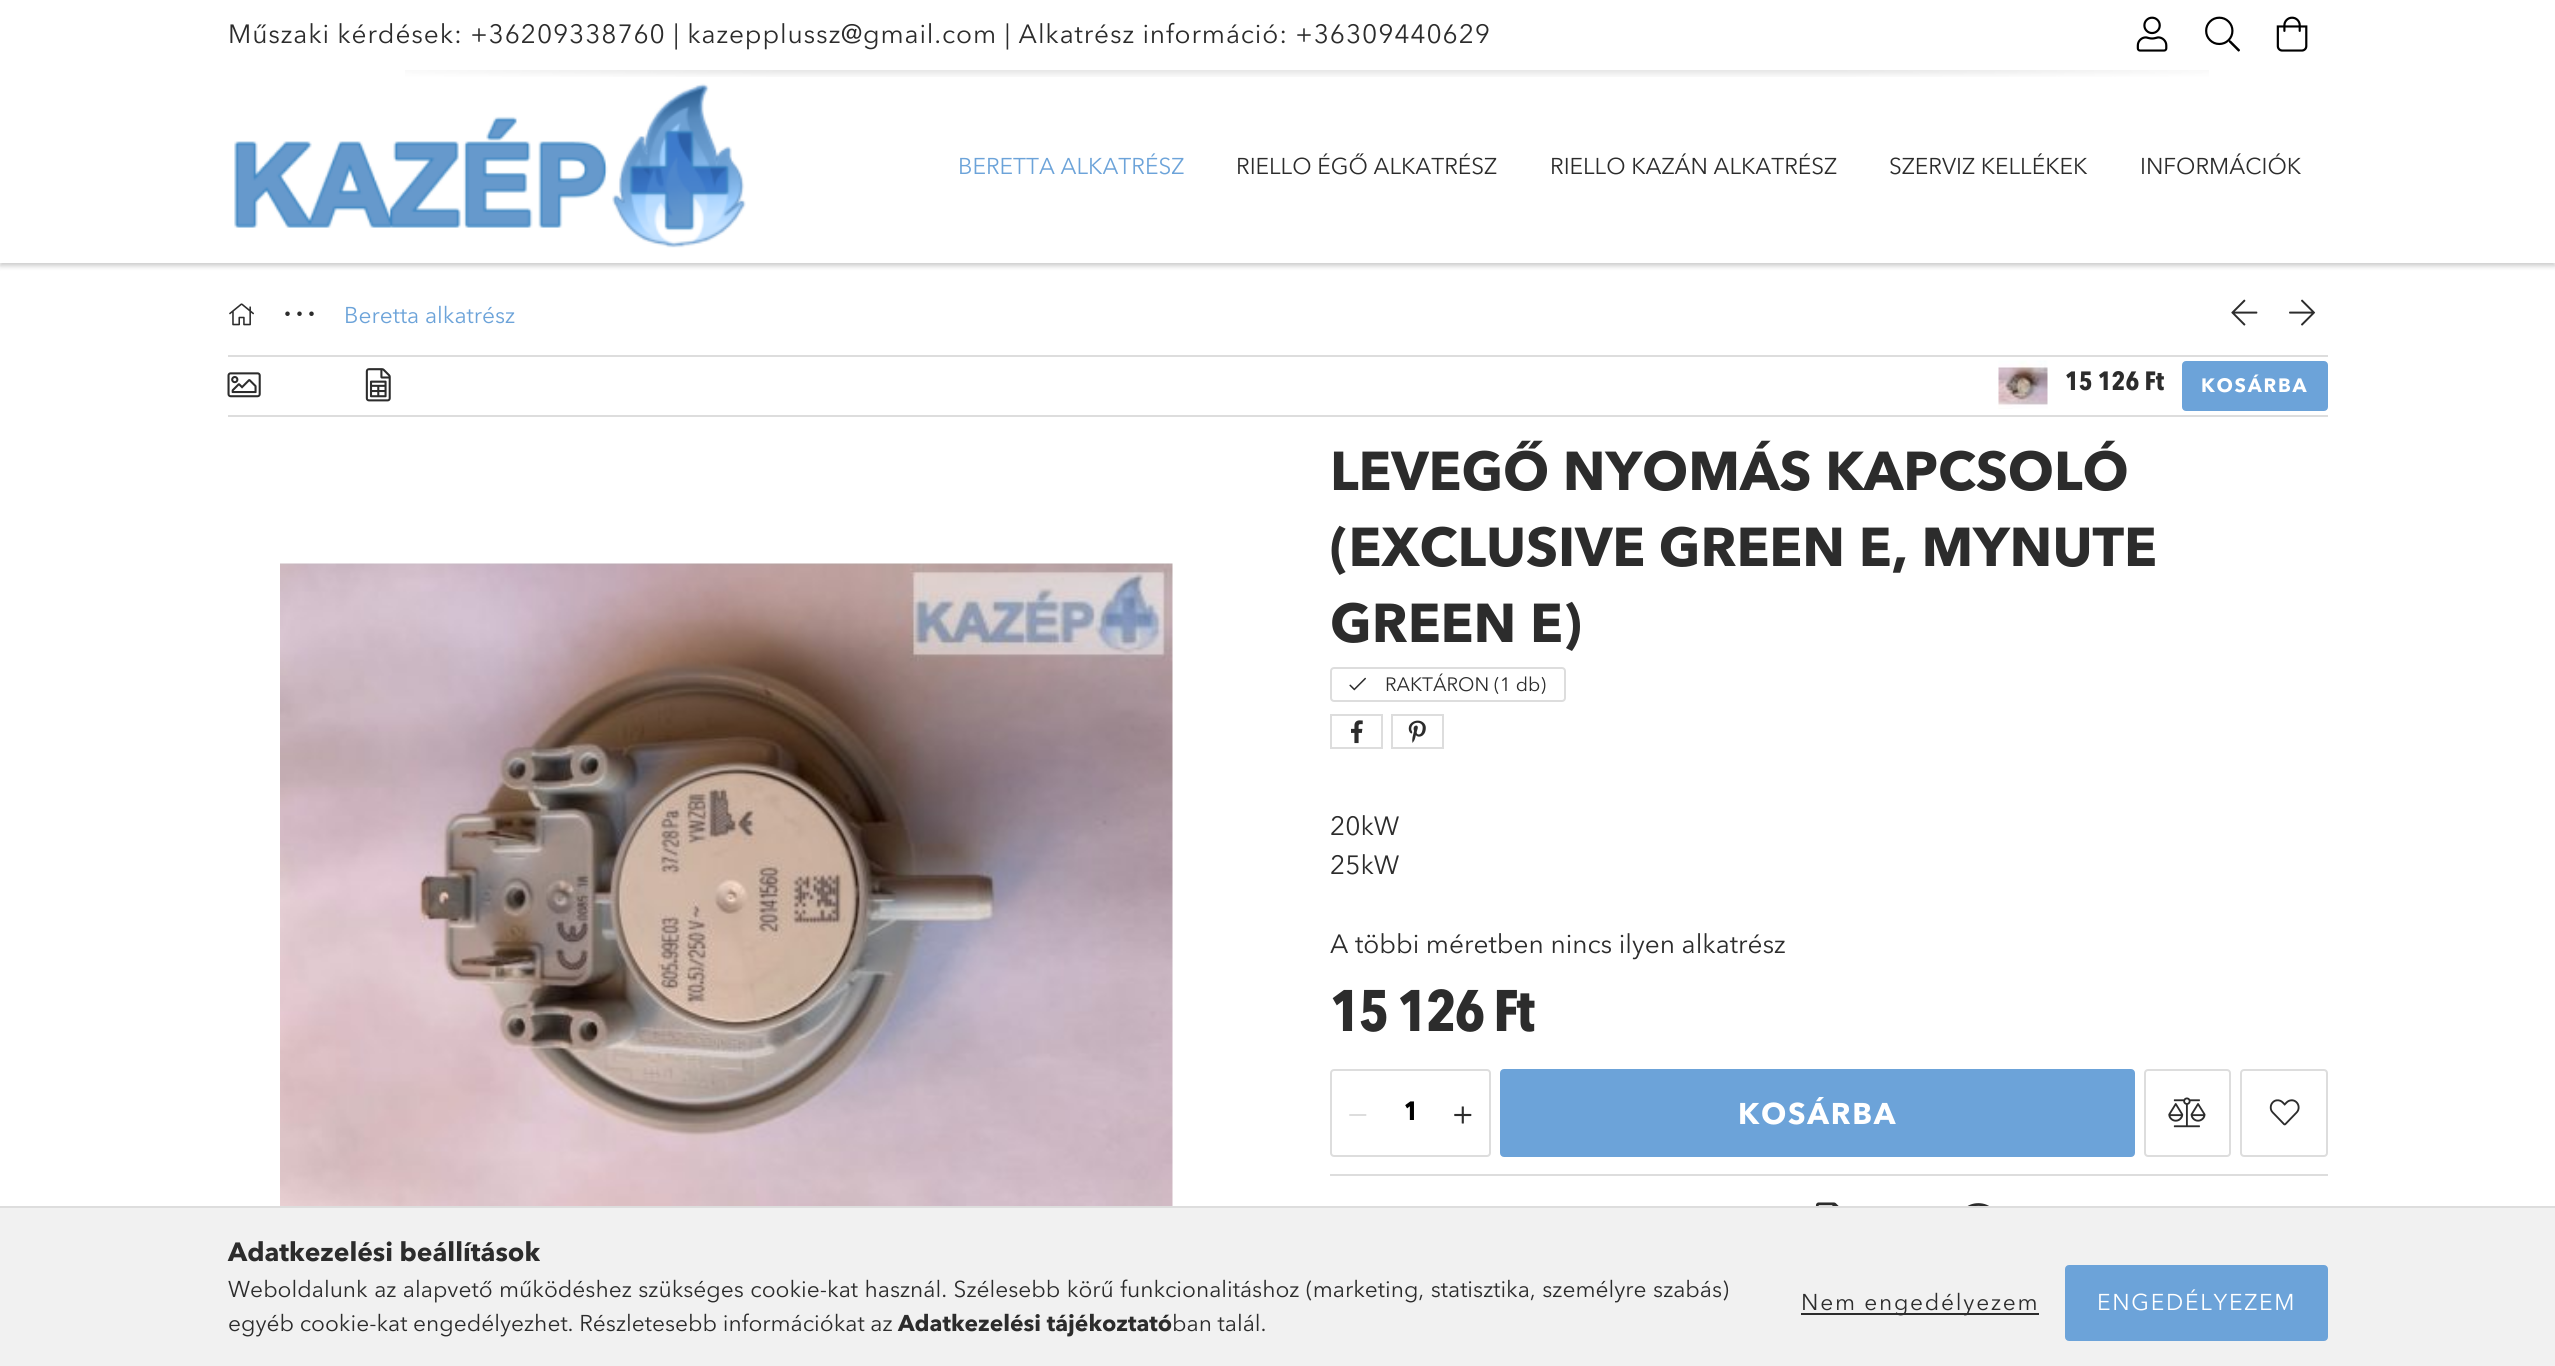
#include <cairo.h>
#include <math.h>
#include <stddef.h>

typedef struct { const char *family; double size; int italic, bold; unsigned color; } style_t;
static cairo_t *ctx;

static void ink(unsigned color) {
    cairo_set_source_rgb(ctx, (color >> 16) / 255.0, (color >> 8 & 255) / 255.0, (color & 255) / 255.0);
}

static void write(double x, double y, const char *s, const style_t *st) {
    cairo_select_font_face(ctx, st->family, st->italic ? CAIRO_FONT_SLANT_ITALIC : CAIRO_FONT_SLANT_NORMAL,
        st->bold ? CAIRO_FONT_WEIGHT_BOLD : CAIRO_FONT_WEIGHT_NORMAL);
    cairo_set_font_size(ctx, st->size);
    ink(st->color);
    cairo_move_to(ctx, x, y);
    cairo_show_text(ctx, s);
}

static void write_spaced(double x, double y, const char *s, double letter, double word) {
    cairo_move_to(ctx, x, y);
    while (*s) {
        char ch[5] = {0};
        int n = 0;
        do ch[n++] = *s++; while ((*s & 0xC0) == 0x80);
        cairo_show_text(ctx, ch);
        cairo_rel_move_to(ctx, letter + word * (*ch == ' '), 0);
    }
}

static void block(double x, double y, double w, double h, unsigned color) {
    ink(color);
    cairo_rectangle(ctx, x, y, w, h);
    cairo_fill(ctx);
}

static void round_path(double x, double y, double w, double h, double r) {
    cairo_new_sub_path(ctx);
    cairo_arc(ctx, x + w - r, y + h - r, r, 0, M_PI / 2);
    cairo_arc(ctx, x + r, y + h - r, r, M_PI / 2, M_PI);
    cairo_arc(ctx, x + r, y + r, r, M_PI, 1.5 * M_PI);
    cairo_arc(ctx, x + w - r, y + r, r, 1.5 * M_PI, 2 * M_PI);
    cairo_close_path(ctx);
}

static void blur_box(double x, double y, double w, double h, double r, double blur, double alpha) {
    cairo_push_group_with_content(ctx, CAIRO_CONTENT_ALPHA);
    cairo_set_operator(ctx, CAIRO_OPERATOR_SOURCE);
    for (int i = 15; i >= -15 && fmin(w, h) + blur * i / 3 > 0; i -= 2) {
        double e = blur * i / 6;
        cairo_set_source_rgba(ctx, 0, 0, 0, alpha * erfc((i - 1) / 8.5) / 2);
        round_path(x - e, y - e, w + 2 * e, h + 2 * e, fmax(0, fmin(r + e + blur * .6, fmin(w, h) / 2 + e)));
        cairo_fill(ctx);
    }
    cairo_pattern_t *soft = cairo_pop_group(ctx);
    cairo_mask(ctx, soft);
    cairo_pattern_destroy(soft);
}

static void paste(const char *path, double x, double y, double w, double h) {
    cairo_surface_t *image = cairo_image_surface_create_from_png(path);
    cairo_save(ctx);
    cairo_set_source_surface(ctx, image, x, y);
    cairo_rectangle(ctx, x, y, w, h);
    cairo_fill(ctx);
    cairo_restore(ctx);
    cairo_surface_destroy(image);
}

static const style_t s1 = {"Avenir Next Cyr", 22.75, 0, 0, 0x6ca3d9};
static const style_t s2 = {"Avenir Next Cyr", 22.75, 0, 0, 0x2c2c2c};
static const style_t s3 = {"Avenir Next", 26.25, 0, 1, 0x2c2c2c};
static const style_t s4 = {"Avenir Next Cyr", 54.25, 0, 1, 0x2c2c2c};
static const style_t s5 = {"Avenir Next Cyr", 19.25, 0, 0, 0x2c2c2c};
static const style_t s6 = {"Avenir Next Cyr", 26.25, 0, 0, 0x2c2c2c};
static const style_t s7 = {"Avenir Next", 26.25, 0, 1, 0x000000};
static const style_t s8 = {"Avenir Next Cyr", 26.25, 0, 1, 0x2c2c2c};
static const style_t s9 = {"Avenir Next Cyr", 22.75, 0, 1, 0x2c2c2c};

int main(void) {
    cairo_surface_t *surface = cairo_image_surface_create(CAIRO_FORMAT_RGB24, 2555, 1366);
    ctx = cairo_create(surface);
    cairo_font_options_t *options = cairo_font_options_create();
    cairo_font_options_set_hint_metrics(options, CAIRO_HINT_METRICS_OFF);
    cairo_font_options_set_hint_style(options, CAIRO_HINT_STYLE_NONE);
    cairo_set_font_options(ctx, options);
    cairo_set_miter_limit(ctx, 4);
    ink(0xffffff);
    cairo_paint(ctx);
    ink(0x000000);
    blur_box(0, 4, 2555, 262, 0, 2.5, 0.2);
    block(0, 0, 2555, 263, 0xffffff);
    cairo_select_font_face(ctx, "Avenir Next Cyr", CAIRO_FONT_SLANT_NORMAL, CAIRO_FONT_WEIGHT_NORMAL);
    cairo_set_font_size(ctx, 26.25);
    ink(0x2c2c2c);
    write_spaced(228, 43, "Műszaki kérdések: +36209338760 | kazepplussz@gmail.com | Alkatrész információ: +36309440629", 0.88, 0);
    paste("pic1.png", 2136, 16, 32, 36);
    paste("pic2.png", 2205, 16, 35, 36);
    paste("pic3.png", 2276, 16, 32, 36);
    paste("pic4.png", 405, 70, 1804, 7);
    paste("pic5.png", 234, 83, 512, 165);
    write(958, 174, "BERETTA ALKATRÉSZ", &s1);
    write(1236, 174, "RIELLO ÉGŐ ALKATRÉSZ", &s2);
    write(1550, 174, "RIELLO KAZÁN ALKATRÉSZ", &s2);
    write(1889, 174, "SZERVIZ KELLÉKEK", &s2);
    write(2140, 174, "INFORMÁCIÓK", &s2);
    paste("pic6.png", 229, 303, 25, 23);
    cairo_select_font_face(ctx, "Liberation Serif", CAIRO_FONT_SLANT_NORMAL, CAIRO_FONT_WEIGHT_BOLD);
    cairo_set_font_size(ctx, 28);
    write_spaced(284, 323, "∙∙∙", 5, 0);
    write(344, 323, "Beretta alkatrész", &s1);
    paste("pic7.png", 2231, 299, 27, 27);
    paste("pic8.png", 2289, 299, 27, 27);
    block(228, 355, 2100, 2, 0xdddddd);
    block(228, 415, 2100, 2, 0xdddddd);
    paste("pic9.png", 227, 372, 34, 26);
    paste("pic10.png", 365, 368, 26, 34);
    paste("pic11.png", 1998, 360, 50, 49);
    write(2065, 390, "15 126 Ft", &s3);
    ink(0x6ca3d9);
    round_path(2183, 362, 144, 48, 3);
    cairo_fill_preserve(ctx);
    cairo_stroke(ctx);
    cairo_select_font_face(ctx, "Avenir Next Cyr", CAIRO_FONT_SLANT_NORMAL, CAIRO_FONT_WEIGHT_BOLD);
    cairo_set_font_size(ctx, 19.25);
    ink(0xffffff);
    write_spaced(2201, 392, "KOSÁRBA", 1.75, 0);
    paste("pic12.png", 280, 563, 893, 643);
    write(1330, 490, "LEVEGŐ NYOMÁS KAPCSOLÓ", &s4);
    write(1330, 566, "(EXCLUSIVE GREEN E, MYNUTE", &s4);
    write(1330, 642, "GREEN E)", &s4);
    round_path(1331, 668, 234, 33, 3);
    ink(0xdddddd);
    cairo_stroke(ctx);
    paste("pic13.png", 1349, 677, 17, 14);
    write(1385, 691, "RAKTÁRON (1 db)", &s5);
    cairo_rectangle(ctx, 1331, 715, 51, 33);
    ink(0xdddddd);
    cairo_stroke(ctx);
    paste("pic14.png", 1351, 720, 12, 24);
    cairo_rectangle(ctx, 1392, 715, 51, 33);
    cairo_stroke(ctx);
    paste("pic15.png", 1408, 720, 18, 23);
    write(1330, 835, "20kW", &s6);
    write(1330, 874, "25kW", &s6);
    write(1330, 953, "A többi méretben nincs ilyen alkatrész", &s6);
    cairo_select_font_face(ctx, "Avenir Next", CAIRO_FONT_SLANT_NORMAL, CAIRO_FONT_WEIGHT_BOLD);
    cairo_set_font_size(ctx, 58);
    write_spaced(1330, 1031, "15 126 Ft", -1.75, 0);
    round_path(1331, 1070, 159, 86, 3);
    ink(0xdddddd);
    cairo_stroke(ctx);
    paste("pic16.png", 1349, 1114, 18, 2);
    write(1404, 1120, "1", &s7);
    paste("pic17.png", 1454, 1106, 18, 18);
    ink(0x6ca3d9);
    round_path(1501, 1070, 633, 86, 3);
    cairo_fill_preserve(ctx);
    cairo_stroke(ctx);
    cairo_select_font_face(ctx, "Avenir Next Cyr", CAIRO_FONT_SLANT_NORMAL, CAIRO_FONT_WEIGHT_BOLD);
    cairo_set_font_size(ctx, 29.75);
    ink(0xffffff);
    write_spaced(1738, 1124, "KOSÁRBA", 1.75, 0);
    round_path(2145, 1070, 85, 86, 3);
    ink(0xdddddd);
    cairo_stroke(ctx);
    paste("pic18.png", 2168, 1097, 38, 31);
    round_path(2241, 1070, 86, 86, 3);
    cairo_stroke(ctx);
    paste("pic19.png", 2269, 1099, 31, 27);
    block(1330, 1174, 998, 2, 0xdddddd);
    paste("pic20.png", 1815, 1202, 24, 4);
    paste("pic21.png", 1967, 1203, 22, 3);
    block(0, 1208, 2555, 158, 0xf1f1f1);
    block(0, 1206, 2555, 2, 0xdddddd);
    write(228, 1261, "Adatkezelési beállítások", &s8);
    cairo_select_font_face(ctx, "Avenir Next Cyr", CAIRO_FONT_SLANT_NORMAL, CAIRO_FONT_WEIGHT_NORMAL);
    cairo_set_font_size(ctx, 22.75);
    write_spaced(228, 1297, "Weboldalunk az alapvető működéshez szükséges cookie-kat használ. Szélesebb körű funkcionalitáshoz (marketing, statisztika, személyre szabás)", 0, 0.8);
    write(228, 1331, "egyéb cookie-kat engedélyezhet. Részletesebb információkat az", &s2);
    write(898, 1331, "Adatkezelési tájékoztató", &s9);
    write(1172, 1331, "ban talál.", &s2);
    block(1801, 1313, 238, 2, 0x2c2c2c);
    write_spaced(1801, 1310, "Nem engedélyezem", 1.75, 0);
    ink(0x6ca3d9);
    round_path(2066, 1266, 261, 74, 3);
    cairo_fill_preserve(ctx);
    cairo_stroke(ctx);
    ink(0xffffff);
    write_spaced(2097, 1310, "ENGEDÉLYEZEM", 1.75, 0);
    cairo_surface_write_to_png(surface, "screenshot.png");
    cairo_font_options_destroy(options);
    cairo_destroy(ctx);
    cairo_surface_destroy(surface);
    return 0;
}
